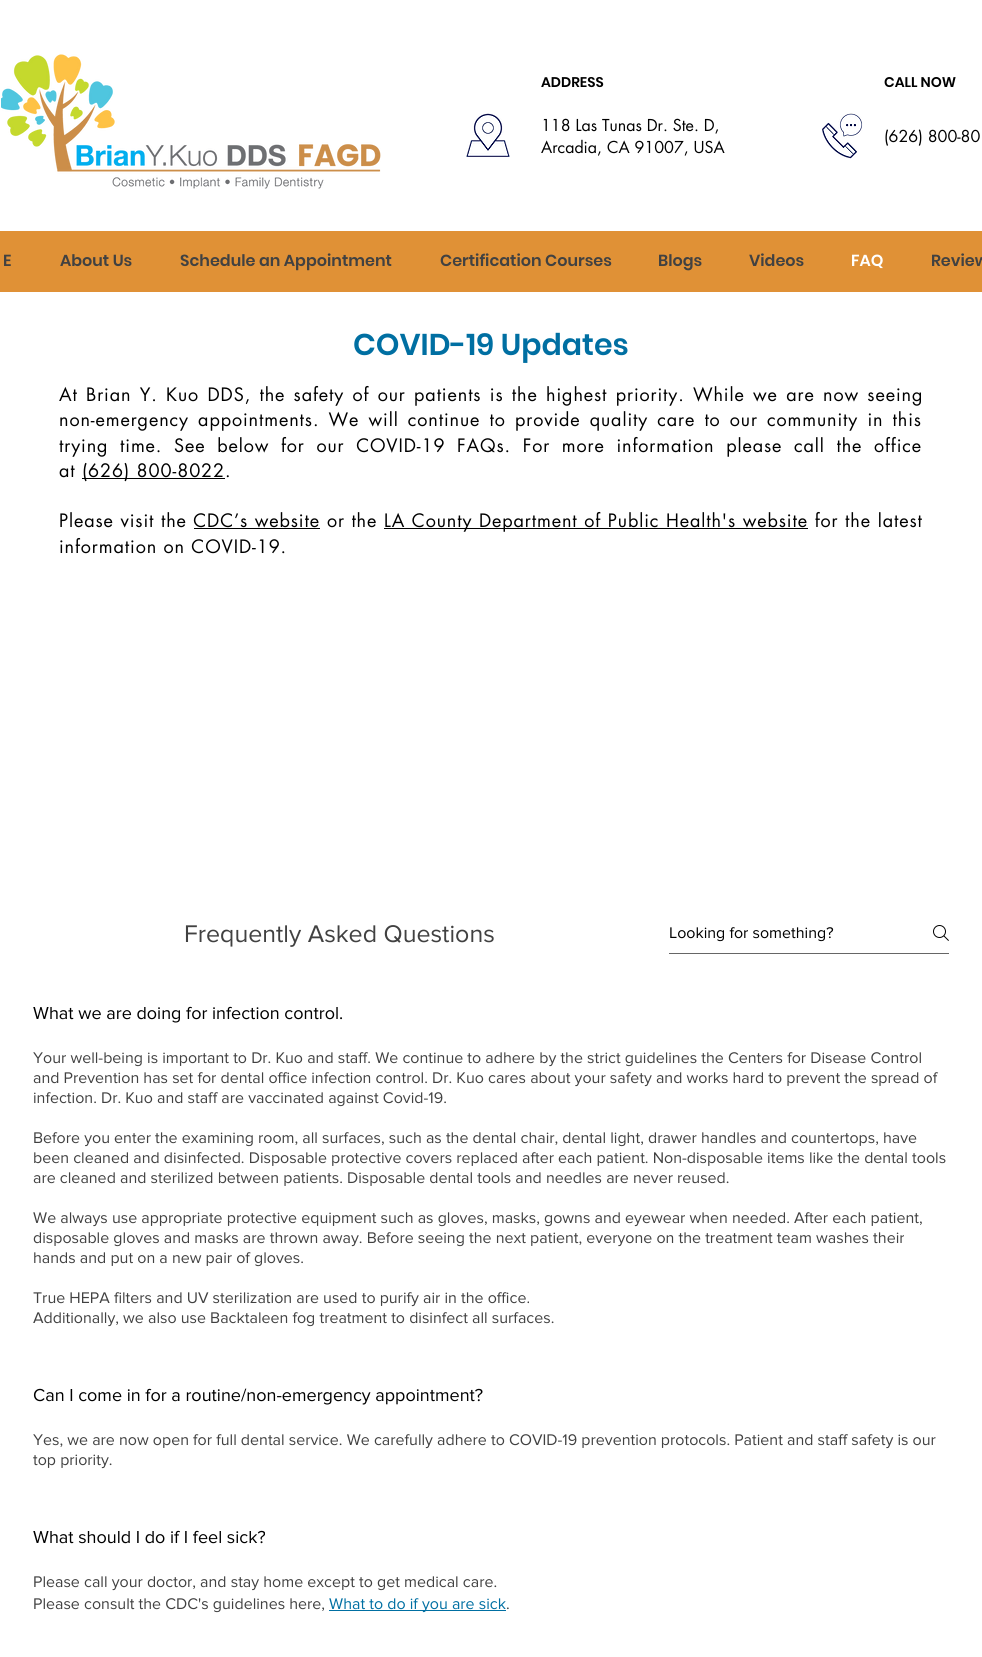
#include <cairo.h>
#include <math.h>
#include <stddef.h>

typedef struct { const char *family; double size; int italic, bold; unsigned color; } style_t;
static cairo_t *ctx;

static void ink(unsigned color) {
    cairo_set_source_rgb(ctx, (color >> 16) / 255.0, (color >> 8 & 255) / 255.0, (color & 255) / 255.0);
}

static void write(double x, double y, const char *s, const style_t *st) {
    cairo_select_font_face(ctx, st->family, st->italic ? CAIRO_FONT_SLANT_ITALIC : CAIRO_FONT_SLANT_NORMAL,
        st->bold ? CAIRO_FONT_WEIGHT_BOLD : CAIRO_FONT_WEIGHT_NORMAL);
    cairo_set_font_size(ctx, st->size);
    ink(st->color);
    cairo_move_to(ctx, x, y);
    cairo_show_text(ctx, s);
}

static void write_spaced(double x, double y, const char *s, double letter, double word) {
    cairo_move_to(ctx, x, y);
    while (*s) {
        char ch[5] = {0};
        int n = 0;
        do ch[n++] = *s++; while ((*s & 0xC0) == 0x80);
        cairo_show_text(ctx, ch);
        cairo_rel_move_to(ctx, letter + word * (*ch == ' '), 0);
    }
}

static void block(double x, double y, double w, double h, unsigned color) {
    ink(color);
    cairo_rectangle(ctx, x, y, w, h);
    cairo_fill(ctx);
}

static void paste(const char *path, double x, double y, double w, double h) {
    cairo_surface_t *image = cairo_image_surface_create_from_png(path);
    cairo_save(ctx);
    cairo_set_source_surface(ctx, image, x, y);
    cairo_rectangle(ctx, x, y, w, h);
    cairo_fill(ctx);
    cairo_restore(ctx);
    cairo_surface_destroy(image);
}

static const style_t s1 = {"Poppins SemiBold", 14, 0, 0, 0x000000};
static const style_t s2 = {"futura", 16, 0, 0, 0x000000};
static const style_t s3 = {"Poppins SemiBold", 16, 0, 0, 0x414141};
static const style_t s4 = {"Poppins SemiBold", 16, 0, 0, 0xffffff};
static const style_t s5 = {"Poppins SemiBold", 30, 0, 0, 0x006fa2};
static const style_t s6 = {"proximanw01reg", 25, 0, 0, 0x414141};
static const style_t s7 = {"proximanw01reg", 16, 0, 0, 0x000000};
static const style_t s8 = {"proximanw01reg", 18, 0, 0, 0x000000};
static const style_t s9 = {"proximanw01reg", 16, 0, 0, 0x414141};
static const style_t s10 = {"proximanw01reg", 16, 0, 0, 0x006fa2};

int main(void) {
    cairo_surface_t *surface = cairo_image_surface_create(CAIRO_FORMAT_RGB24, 982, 1657);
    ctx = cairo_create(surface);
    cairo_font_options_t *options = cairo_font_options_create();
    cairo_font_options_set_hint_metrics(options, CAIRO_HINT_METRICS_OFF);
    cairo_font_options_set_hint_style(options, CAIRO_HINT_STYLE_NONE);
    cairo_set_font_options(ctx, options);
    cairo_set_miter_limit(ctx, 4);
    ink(0xffffff);
    cairo_paint(ctx);
    paste("pic1.png", 1, 54, 380, 135);
    write(541, 87, "ADDRESS", &s1);
    write(884, 87, "CALL NOW", &s1);
    paste("pic2.png", 466, 113, 44, 44);
    write(541, 131, "118 Las Tunas Dr. Ste. D,", &s2);
    write(541, 153, "Arcadia, CA 91007, USA", &s2);
    paste("pic3.png", 822, 113, 41, 46);
    write(884, 142, "(626) 800-80", &s2);
    block(0, 231, 982, 61, 0xe09136);
    write(3, 266, "E", &s3);
    write(60, 266, "About Us", &s3);
    write(180, 266, "Schedule an Appointment", &s3);
    write(440, 266, "Certification Courses", &s3);
    write(658, 266, "Blogs", &s3);
    write(749, 266, "Videos", &s3);
    write(851, 266, "FAQ", &s4);
    write(931, 266, "Review", &s3);
    write(353, 355, "COVID-19 Updates", &s5);
    cairo_select_font_face(ctx, "futura", CAIRO_FONT_SLANT_NORMAL, CAIRO_FONT_WEIGHT_NORMAL);
    cairo_set_font_size(ctx, 18);
    ink(0x000000);
    write_spaced(59, 401, "At Brian Y. Kuo DDS, the safety of our patients is the highest priority. While we are now seeing", 0.9, 1.9);
    write_spaced(59, 426, "non-emergency appointments. We will continue to provide quality care to our community in this", 0.9, 2.75);
    write_spaced(59, 452, "trying time.", 0.9, 5.25);
    write_spaced(174, 452, "See below for our COVID-19 FAQs. For more information please call the office", 0.9, 5.25);
    write_spaced(59, 477, "at", 0.9, 0);
    block(82, 478, 143, 1, 0x000000);
    write_spaced(82, 477, "(626) 800-8022.", 0.9, 0);
    write_spaced(59, 527, "Please visit", 0.9, 0.25);
    write_spaced(161, 527, "the CDC’s website", 0.9, 0);
    block(194, 528, 126, 1, 0x000000);
    write_spaced(327, 527, "or the", 0.9, 0);
    block(384, 528, 424, 1, 0x000000);
    write_spaced(384, 527, "LA County Department of Public Health's website for the latest", 0.9, 0.25);
    write_spaced(59, 553, "information on COVID-19.", 0.9, 0);
    write(184, 942, "Frequently Asked Questions", &s6);
    block(669, 953, 280, 1, 0x666666);
    write(669, 938, "Looking for something?", &s7);
    paste("pic4.png", 933, 925, 16, 16);
    write(33, 1019, "What we are doing for infection control.", &s8);
    write(33, 1063, "Your well-being is important to Dr. Kuo and staff. We continue to adhere by the strict guidelines the Centers for Disease Control", &s9);
    write(33, 1083, "and Prevention has set for dental office infection control. Dr. Kuo cares about your safety and works hard to prevent the spread of", &s9);
    write(33, 1103, "infection. Dr. Kuo and staff are vaccinated against Covid-19.", &s9);
    write(33, 1143, "Before you enter the examining room, all surfaces, such as the dental chair, dental light, drawer handles and countertops, have", &s9);
    write(33, 1163, "been cleaned and disinfected. Disposable protective covers replaced after each patient. Non-disposable items like the dental tools", &s9);
    write(33, 1183, "are cleaned and sterilized between patients. Disposable dental tools and needles are never reused.", &s9);
    write(33, 1223, "We always use appropriate protective equipment such as gloves, masks, gowns and eyewear when needed. After each patient,", &s9);
    write(33, 1243, "disposable gloves and masks are thrown away. Before seeing the next patient, everyone on the treatment team washes their", &s9);
    write(33, 1263, "hands and put on a new pair of gloves.", &s9);
    write(33, 1303, "True HEPA filters and UV sterilization are used to purify air in the office.", &s9);
    write(33, 1323, "Additionally, we also use Backtaleen fog treatment to disinfect all surfaces.", &s9);
    write(33, 1401, "Can I come in for a routine/non-emergency appointment?", &s8);
    write(33, 1445, "Yes, we are now open for full dental service. We carefully adhere to COVID-19 prevention protocols. Patient and staff safety is our", &s9);
    write(33, 1465, "top priority.", &s9);
    write(33, 1543, "What should I do if I feel sick?", &s8);
    write(33, 1587, "Please call your doctor, and stay home except to get medical care.", &s9);
    write(33, 1609, "Please consult the CDC's guidelines here,", &s9);
    block(329, 1610, 177, 1, 0x006fa2);
    write(329, 1609, "What to do if you are sick", &s10);
    write(506, 1609, ".", &s9);
    cairo_surface_write_to_png(surface, "screenshot.png");
    cairo_font_options_destroy(options);
    cairo_destroy(ctx);
    cairo_surface_destroy(surface);
    return 0;
}
